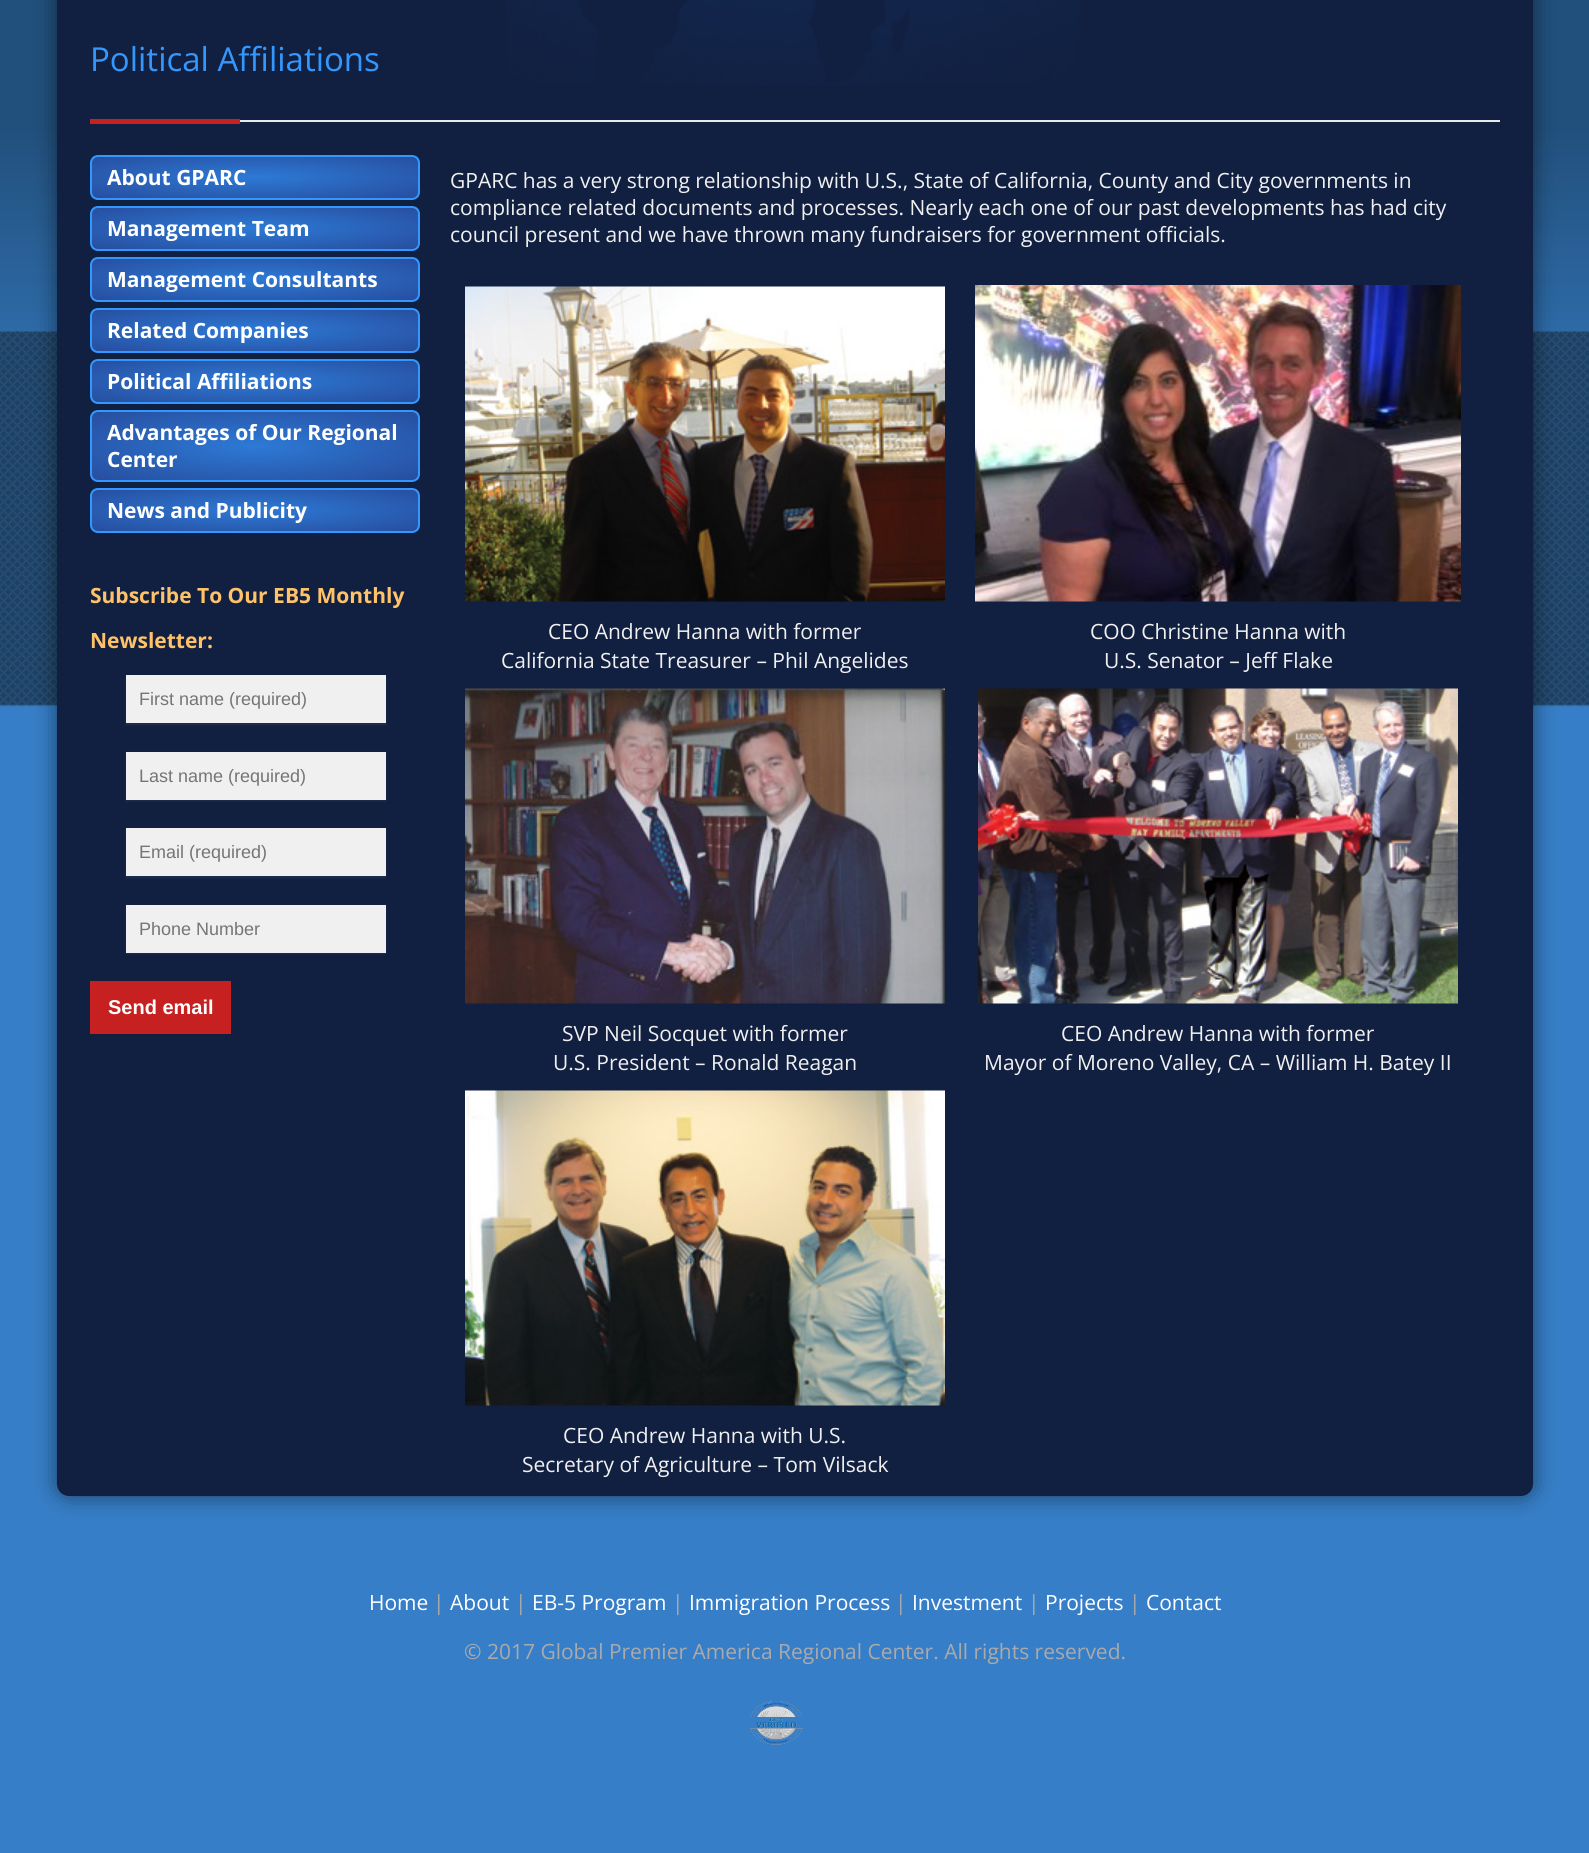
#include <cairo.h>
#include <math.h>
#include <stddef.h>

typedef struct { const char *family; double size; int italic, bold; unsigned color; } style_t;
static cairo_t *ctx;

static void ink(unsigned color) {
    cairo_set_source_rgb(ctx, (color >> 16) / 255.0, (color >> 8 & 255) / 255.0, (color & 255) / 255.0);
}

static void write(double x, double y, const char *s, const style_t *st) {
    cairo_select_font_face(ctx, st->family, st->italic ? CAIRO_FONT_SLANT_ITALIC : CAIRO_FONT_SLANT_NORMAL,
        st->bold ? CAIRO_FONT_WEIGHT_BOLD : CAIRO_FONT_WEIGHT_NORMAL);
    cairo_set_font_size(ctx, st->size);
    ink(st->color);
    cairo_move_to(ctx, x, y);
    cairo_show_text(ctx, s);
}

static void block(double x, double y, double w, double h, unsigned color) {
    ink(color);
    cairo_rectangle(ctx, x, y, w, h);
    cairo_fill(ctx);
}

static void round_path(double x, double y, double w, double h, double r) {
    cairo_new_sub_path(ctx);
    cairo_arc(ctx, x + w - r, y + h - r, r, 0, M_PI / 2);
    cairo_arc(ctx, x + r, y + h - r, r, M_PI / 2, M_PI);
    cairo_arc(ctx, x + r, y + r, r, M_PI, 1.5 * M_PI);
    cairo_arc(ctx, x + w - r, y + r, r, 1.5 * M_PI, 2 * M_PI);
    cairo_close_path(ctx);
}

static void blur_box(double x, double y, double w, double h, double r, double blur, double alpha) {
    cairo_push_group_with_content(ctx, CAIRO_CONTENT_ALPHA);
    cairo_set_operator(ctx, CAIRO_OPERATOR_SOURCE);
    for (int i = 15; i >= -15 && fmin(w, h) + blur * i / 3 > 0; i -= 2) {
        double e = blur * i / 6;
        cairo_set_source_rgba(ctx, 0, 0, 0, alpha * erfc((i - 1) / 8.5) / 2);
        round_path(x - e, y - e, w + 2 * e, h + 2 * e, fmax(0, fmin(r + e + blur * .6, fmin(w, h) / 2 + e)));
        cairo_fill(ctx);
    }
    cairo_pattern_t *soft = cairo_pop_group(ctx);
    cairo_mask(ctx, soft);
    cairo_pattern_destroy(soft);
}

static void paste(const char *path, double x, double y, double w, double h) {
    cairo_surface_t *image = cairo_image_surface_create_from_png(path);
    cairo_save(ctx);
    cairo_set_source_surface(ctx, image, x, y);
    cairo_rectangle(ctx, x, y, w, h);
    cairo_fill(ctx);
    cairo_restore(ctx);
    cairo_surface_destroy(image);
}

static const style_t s1 = {"Open Sans", 33, 0, 0, 0x3497fd};
static const style_t s2 = {"Open Sans", 21, 0, 1, 0xffffff};
static const style_t s3 = {"Open Sans", 21, 0, 1, 0xffc268};
static const style_t s4 = {"Liberation Sans", 18, 0, 0, 0x757575};
static const style_t s5 = {"Liberation Sans", 20, 0, 1, 0xffffff};
static const style_t s6 = {"Open Sans", 21, 0, 0, 0xf0f0f0};
static const style_t s7 = {"Open Sans", 21, 0, 0, 0xffffff};
static const style_t s8 = {"Open Sans", 21, 0, 0, 0xaaaaaa};

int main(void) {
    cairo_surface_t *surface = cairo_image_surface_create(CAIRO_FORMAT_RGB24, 1589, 1853);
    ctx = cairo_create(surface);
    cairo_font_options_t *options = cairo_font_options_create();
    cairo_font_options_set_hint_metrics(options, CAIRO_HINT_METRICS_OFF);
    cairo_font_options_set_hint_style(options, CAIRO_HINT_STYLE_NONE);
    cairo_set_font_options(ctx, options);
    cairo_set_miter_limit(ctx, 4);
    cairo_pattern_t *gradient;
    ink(0x367ec7);
    cairo_paint(ctx);
    paste("pic1.png", 0, 0, 1589, 707);
    ink(0x000000);
    blur_box(57, -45, 1476, 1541, 12, 11, 0.5);
    ink(0x112041);
    round_path(57, -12, 1476, 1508, 12);
    cairo_fill(ctx);
    paste("pic2.png", 506, 0, 574, 85);
    block(240, 120, 1260, 2, 0xe9e9e9);
    write(90, 71, "Political Affiliations", &s1);
    block(90, 119, 150, 5, 0xc62020);
    cairo_save(ctx);
    round_path(90, 155, 330, 45, 8);
    cairo_clip(ctx);
    gradient = cairo_pattern_create_radial(0, 0, 0, 0, 0, 1);
    cairo_pattern_set_matrix(gradient, &(cairo_matrix_t){1.0 / 231, 0, 0, 1.0 / 30, -1.0 * 255 / 231, -1.0 * 177 / 30});
    cairo_pattern_add_color_stop_rgba(gradient, 0, 0.176, 0.478, 0.839, 1);
    cairo_pattern_add_color_stop_rgba(gradient, 1, 0.153, 0.302, 0.62, 1);
    cairo_set_source(ctx, gradient);
    cairo_pattern_destroy(gradient);
    cairo_rectangle(ctx, 92, 156, 327, 42);
    cairo_fill(ctx);
    cairo_restore(ctx);
    round_path(91, 156, 328, 43, 7);
    ink(0x3298fd);
    cairo_stroke(ctx);
    write(107, 185, "About GPARC", &s2);
    cairo_save(ctx);
    round_path(90, 206, 330, 45, 8);
    cairo_clip(ctx);
    gradient = cairo_pattern_create_radial(0, 0, 0, 0, 0, 1);
    cairo_pattern_set_matrix(gradient, &(cairo_matrix_t){1.0 / 231, 0, 0, 1.0 / 30, -1.0 * 255 / 231, -1.0 * 228 / 30});
    cairo_pattern_add_color_stop_rgba(gradient, 0, 0.176, 0.478, 0.839, 1);
    cairo_pattern_add_color_stop_rgba(gradient, 1, 0.153, 0.302, 0.62, 1);
    cairo_set_source(ctx, gradient);
    cairo_pattern_destroy(gradient);
    cairo_rectangle(ctx, 92, 207, 327, 42);
    cairo_fill(ctx);
    cairo_restore(ctx);
    round_path(91, 207, 328, 43, 7);
    ink(0x3298fd);
    cairo_stroke(ctx);
    write(107, 236, "Management Team", &s2);
    cairo_save(ctx);
    round_path(90, 257, 330, 45, 8);
    cairo_clip(ctx);
    gradient = cairo_pattern_create_radial(0, 0, 0, 0, 0, 1);
    cairo_pattern_set_matrix(gradient, &(cairo_matrix_t){1.0 / 231, 0, 0, 1.0 / 30, -1.0 * 255 / 231, -1.0 * 279 / 30});
    cairo_pattern_add_color_stop_rgba(gradient, 0, 0.176, 0.478, 0.839, 1);
    cairo_pattern_add_color_stop_rgba(gradient, 1, 0.153, 0.302, 0.62, 1);
    cairo_set_source(ctx, gradient);
    cairo_pattern_destroy(gradient);
    cairo_rectangle(ctx, 92, 258, 327, 42);
    cairo_fill(ctx);
    cairo_restore(ctx);
    round_path(91, 258, 328, 43, 7);
    ink(0x3298fd);
    cairo_stroke(ctx);
    write(107, 287, "Management Consultants", &s2);
    cairo_save(ctx);
    round_path(90, 308, 330, 45, 8);
    cairo_clip(ctx);
    gradient = cairo_pattern_create_radial(0, 0, 0, 0, 0, 1);
    cairo_pattern_set_matrix(gradient, &(cairo_matrix_t){1.0 / 231, 0, 0, 1.0 / 30, -1.0 * 255 / 231, -1.0 * 330 / 30});
    cairo_pattern_add_color_stop_rgba(gradient, 0, 0.176, 0.478, 0.839, 1);
    cairo_pattern_add_color_stop_rgba(gradient, 1, 0.153, 0.302, 0.62, 1);
    cairo_set_source(ctx, gradient);
    cairo_pattern_destroy(gradient);
    cairo_rectangle(ctx, 92, 309, 327, 42);
    cairo_fill(ctx);
    cairo_restore(ctx);
    round_path(91, 309, 328, 43, 7);
    ink(0x3298fd);
    cairo_stroke(ctx);
    write(107, 338, "Related Companies", &s2);
    cairo_save(ctx);
    round_path(90, 359, 330, 45, 8);
    cairo_clip(ctx);
    gradient = cairo_pattern_create_radial(0, 0, 0, 0, 0, 1);
    cairo_pattern_set_matrix(gradient, &(cairo_matrix_t){1.0 / 231, 0, 0, 1.0 / 30, -1.0 * 255 / 231, -1.0 * 381 / 30});
    cairo_pattern_add_color_stop_rgba(gradient, 0, 0.176, 0.478, 0.839, 1);
    cairo_pattern_add_color_stop_rgba(gradient, 1, 0.153, 0.302, 0.62, 1);
    cairo_set_source(ctx, gradient);
    cairo_pattern_destroy(gradient);
    cairo_rectangle(ctx, 92, 360, 327, 42);
    cairo_fill(ctx);
    cairo_restore(ctx);
    round_path(91, 360, 328, 43, 7);
    ink(0x3298fd);
    cairo_stroke(ctx);
    write(107, 389, "Political Affiliations", &s2);
    cairo_save(ctx);
    round_path(90, 410, 330, 72, 8);
    cairo_clip(ctx);
    gradient = cairo_pattern_create_radial(0, 0, 0, 0, 0, 1);
    cairo_pattern_set_matrix(gradient, &(cairo_matrix_t){1.0 / 231, 0, 0, 1.0 / 49, -1.0 * 255 / 231, -1.0 * 446 / 49});
    cairo_pattern_add_color_stop_rgba(gradient, 0, 0.176, 0.478, 0.839, 1);
    cairo_pattern_add_color_stop_rgba(gradient, 1, 0.153, 0.302, 0.62, 1);
    cairo_set_source(ctx, gradient);
    cairo_pattern_destroy(gradient);
    cairo_rectangle(ctx, 92, 411, 327, 69);
    cairo_fill(ctx);
    cairo_restore(ctx);
    round_path(91, 411, 328, 70, 7);
    ink(0x3298fd);
    cairo_stroke(ctx);
    write(107, 440, "Advantages of Our Regional", &s2);
    write(107, 467, "Center", &s2);
    cairo_save(ctx);
    round_path(90, 488, 330, 45, 8);
    cairo_clip(ctx);
    gradient = cairo_pattern_create_radial(0, 0, 0, 0, 0, 1);
    cairo_pattern_set_matrix(gradient, &(cairo_matrix_t){1.0 / 231, 0, 0, 1.0 / 30, -1.0 * 255 / 231, -1.0 * 510 / 30});
    cairo_pattern_add_color_stop_rgba(gradient, 0, 0.176, 0.478, 0.839, 1);
    cairo_pattern_add_color_stop_rgba(gradient, 1, 0.153, 0.302, 0.62, 1);
    cairo_set_source(ctx, gradient);
    cairo_pattern_destroy(gradient);
    cairo_rectangle(ctx, 92, 489, 327, 42);
    cairo_fill(ctx);
    cairo_restore(ctx);
    round_path(91, 489, 328, 43, 7);
    ink(0x3298fd);
    cairo_stroke(ctx);
    write(107, 518, "News and Publicity", &s2);
    write(90, 603, "Subscribe To Our EB5 Monthly", &s3);
    write(90, 648, "Newsletter:", &s3);
    ink(0xb4b4b4);
    blur_box(126, 677, 260, 48, 0, 1, 0.1);
    block(126, 675, 260, 48, 0xf0f0f0);
    write(139, 705, "First name (required)", &s4);
    ink(0xb4b4b4);
    blur_box(126, 753, 260, 48, 0, 1, 0.1);
    block(126, 752, 260, 48, 0xf0f0f0);
    write(139, 782, "Last name (required)", &s4);
    ink(0xb4b4b4);
    blur_box(126, 830, 260, 48, 0, 1, 0.1);
    block(126, 828, 260, 48, 0xf0f0f0);
    write(139, 858, "Email (required)", &s4);
    ink(0xb4b4b4);
    blur_box(126, 906, 260, 48, 0, 1, 0.1);
    block(126, 905, 260, 48, 0xf0f0f0);
    write(139, 935, "Phone Number", &s4);
    block(90, 981, 141, 53, 0xc62020);
    write(108, 1014, "Send email", &s5);
    write(450, 188, "GPARC has a very strong relationship with U.S., State of California, County and City governments in", &s6);
    write(450, 215, "compliance related documents and processes. Nearly each one of our past developments has had city", &s6);
    write(450, 242, "council present and we have thrown many fundraisers for government officials.", &s6);
    paste("pic3.png", 465, 286, 480, 316);
    write(548, 639, "CEO Andrew Hanna with former", &s6);
    write(501, 668, "California State Treasurer – Phil Angelides", &s6);
    paste("pic4.png", 975, 285, 486, 317);
    write(1090, 639, "COO Christine Hanna with", &s6);
    write(1104, 668, "U.S. Senator – Jeff Flake", &s6);
    paste("pic5.png", 465, 688, 480, 316);
    write(562, 1041, "SVP Neil Socquet with former", &s6);
    write(553, 1070, "U.S. President – Ronald Reagan", &s6);
    paste("pic6.png", 978, 688, 480, 316);
    write(1061, 1041, "CEO Andrew Hanna with former", &s6);
    write(984, 1070, "Mayor of Moreno Valley, CA – William H. Batey II", &s6);
    paste("pic7.png", 465, 1090, 480, 316);
    write(563, 1443, "CEO Andrew Hanna with U.S.", &s6);
    write(522, 1472, "Secretary of Agriculture – Tom Vilsack", &s6);
    write(369, 1610, "Home", &s7);
    write(433, 1610, "|", &s8);
    write(450, 1610, "About", &s7);
    write(515, 1610, "|", &s8);
    write(532, 1610, "EB-5 Program", &s7);
    write(672, 1610, "|", &s8);
    write(689, 1610, "Immigration Process", &s7);
    write(895, 1610, "|", &s8);
    write(912, 1610, "Investment", &s7);
    write(1028, 1610, "|", &s8);
    write(1045, 1610, "Projects", &s7);
    write(1129, 1610, "|", &s8);
    write(1146, 1610, "Contact", &s7);
    write(464, 1659, "© 2017 Global Premier America Regional Center. All rights reserved.", &s8);
    paste("pic8.png", 750, 1701, 53, 44);
    cairo_surface_write_to_png(surface, "screenshot.png");
    cairo_font_options_destroy(options);
    cairo_destroy(ctx);
    cairo_surface_destroy(surface);
    return 0;
}
